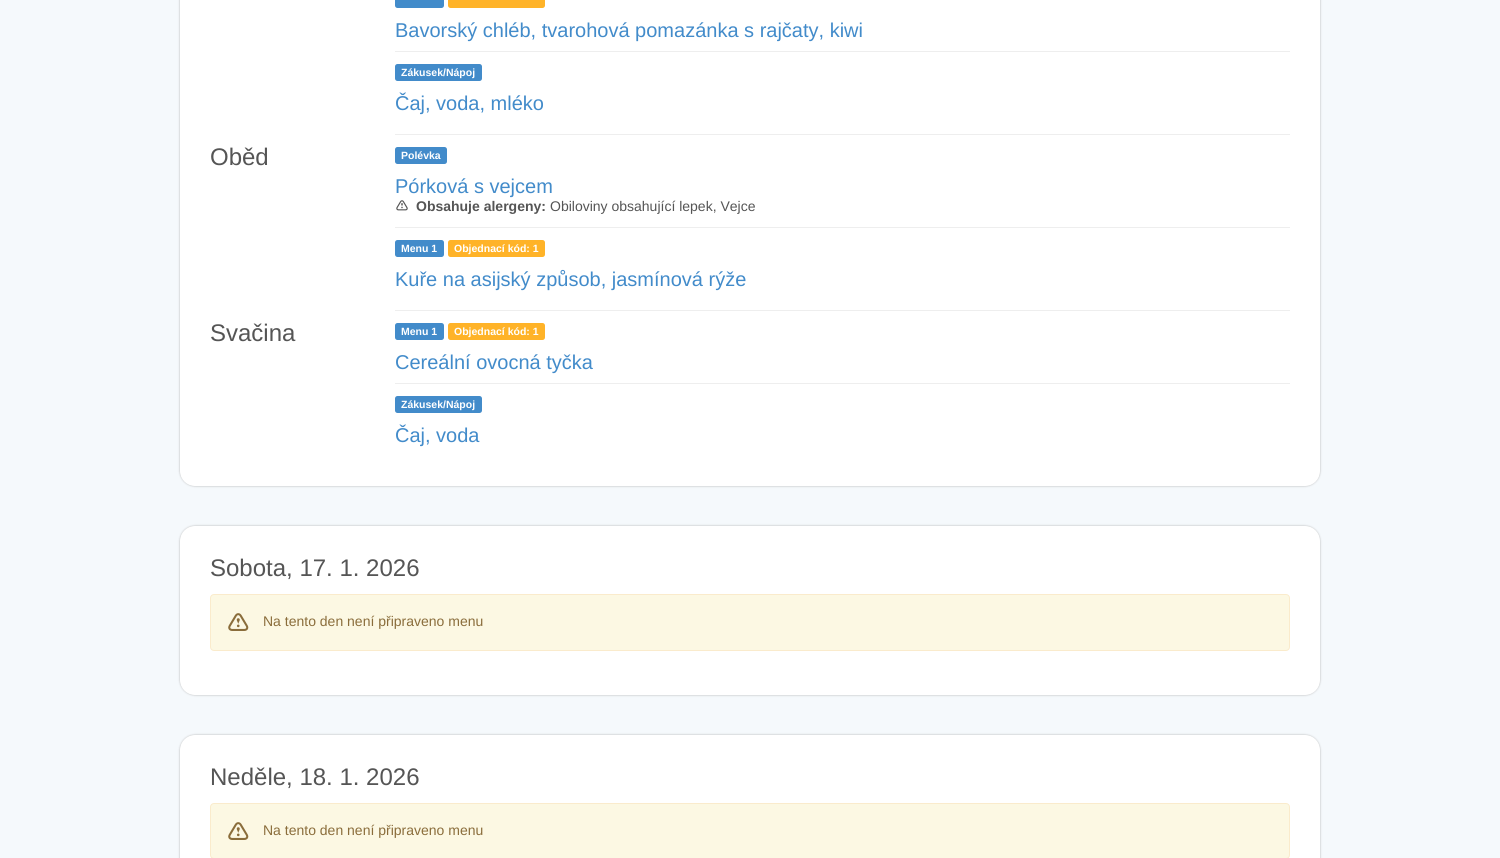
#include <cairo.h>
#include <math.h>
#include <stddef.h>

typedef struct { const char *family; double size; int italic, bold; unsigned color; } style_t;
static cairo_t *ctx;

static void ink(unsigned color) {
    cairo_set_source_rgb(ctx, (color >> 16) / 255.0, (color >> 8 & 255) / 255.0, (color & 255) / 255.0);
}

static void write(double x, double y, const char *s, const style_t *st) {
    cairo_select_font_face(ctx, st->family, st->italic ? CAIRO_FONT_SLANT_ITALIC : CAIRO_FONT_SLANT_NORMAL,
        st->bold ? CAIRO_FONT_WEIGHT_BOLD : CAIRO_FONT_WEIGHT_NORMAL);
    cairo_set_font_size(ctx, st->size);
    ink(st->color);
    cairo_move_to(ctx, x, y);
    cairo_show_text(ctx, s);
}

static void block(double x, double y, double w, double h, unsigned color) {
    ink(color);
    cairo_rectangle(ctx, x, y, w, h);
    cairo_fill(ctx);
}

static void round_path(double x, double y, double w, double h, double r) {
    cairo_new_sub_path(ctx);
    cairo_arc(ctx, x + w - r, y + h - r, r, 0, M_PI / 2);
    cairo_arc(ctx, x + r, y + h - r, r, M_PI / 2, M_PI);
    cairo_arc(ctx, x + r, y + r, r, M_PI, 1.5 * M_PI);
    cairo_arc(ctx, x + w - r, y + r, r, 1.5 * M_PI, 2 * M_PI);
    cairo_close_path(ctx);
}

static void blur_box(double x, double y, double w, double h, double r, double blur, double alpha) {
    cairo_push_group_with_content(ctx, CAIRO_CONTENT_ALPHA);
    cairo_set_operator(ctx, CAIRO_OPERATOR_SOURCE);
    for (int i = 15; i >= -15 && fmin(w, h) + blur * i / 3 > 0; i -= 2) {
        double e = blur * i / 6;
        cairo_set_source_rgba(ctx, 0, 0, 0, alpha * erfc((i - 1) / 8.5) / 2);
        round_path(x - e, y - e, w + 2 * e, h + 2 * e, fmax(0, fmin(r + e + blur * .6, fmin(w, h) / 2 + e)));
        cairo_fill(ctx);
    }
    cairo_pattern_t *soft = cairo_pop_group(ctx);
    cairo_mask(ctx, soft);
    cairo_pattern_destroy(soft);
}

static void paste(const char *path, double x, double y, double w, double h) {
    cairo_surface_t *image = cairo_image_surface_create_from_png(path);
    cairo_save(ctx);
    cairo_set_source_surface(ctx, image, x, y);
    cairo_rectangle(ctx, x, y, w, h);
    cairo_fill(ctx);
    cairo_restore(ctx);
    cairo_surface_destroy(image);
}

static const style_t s1 = {"Liberation Sans", 20, 0, 0, 0x428bca};
static const style_t s2 = {"Liberation Sans", 10.5, 0, 1, 0xffffff};
static const style_t s3 = {"Liberation Sans", 24, 0, 0, 0x555555};
static const style_t s4 = {"Liberation Sans", 14, 0, 1, 0x555555};
static const style_t s5 = {"Liberation Sans", 14, 0, 0, 0x555555};
static const style_t s6 = {"Liberation Sans", 14, 0, 0, 0x8a6d3b};

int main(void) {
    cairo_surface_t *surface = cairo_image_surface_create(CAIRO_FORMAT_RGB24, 1500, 858);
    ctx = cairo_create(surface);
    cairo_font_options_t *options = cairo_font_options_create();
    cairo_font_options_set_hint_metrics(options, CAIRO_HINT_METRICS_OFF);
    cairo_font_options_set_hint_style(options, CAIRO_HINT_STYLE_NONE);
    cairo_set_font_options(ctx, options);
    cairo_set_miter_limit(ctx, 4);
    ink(0xf5f9fc);
    cairo_paint(ctx);
    ink(0xb3b3b3);
    blur_box(180, -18, 1140, 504, 15, 1, 1);
    ink(0xffffff);
    round_path(180, -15, 1140, 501, 15);
    cairo_fill(ctx);
    ink(0x428bca);
    round_path(395, -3, 49, 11, 2.5);
    cairo_fill(ctx);
    ink(0xffb328);
    round_path(448, -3, 97, 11, 2.5);
    cairo_fill(ctx);
    write(395, 37, "Bavorský chléb, tvarohová pomazánka s rajčaty, kiwi", &s1);
    block(395, 51, 895, 1, 0xeeeeee);
    ink(0x428bca);
    round_path(395, 64, 87, 17, 2.5);
    cairo_fill(ctx);
    write(401, 76, "Zákusek/Nápoj", &s2);
    write(395, 110, "Čaj, voda, mléko", &s1);
    write(210, 165, "Oběd", &s3);
    block(395, 134, 895, 1, 0xeeeeee);
    ink(0x428bca);
    round_path(395, 147, 52, 17, 2.5);
    cairo_fill(ctx);
    write(401, 159, "Polévka", &s2);
    write(395, 193, "Pórková s vejcem", &s1);
    paste("pic1.png", 396, 200, 12, 11);
    write(416, 211, "Obsahuje alergeny:", &s4);
    write(550, 211, "Obiloviny obsahující lepek, Vejce", &s5);
    block(395, 227, 895, 1, 0xeeeeee);
    ink(0x428bca);
    round_path(395, 240, 49, 17, 2.5);
    cairo_fill(ctx);
    write(401, 252, "Menu 1", &s2);
    ink(0xffb328);
    round_path(448, 240, 97, 17, 2.5);
    cairo_fill(ctx);
    write(454, 252, "Objednací kód: 1", &s2);
    write(395, 286, "Kuře na asijský způsob, jasmínová rýže", &s1);
    write(210, 341, "Svačina", &s3);
    block(395, 310, 895, 1, 0xeeeeee);
    ink(0x428bca);
    round_path(395, 323, 49, 17, 2.5);
    cairo_fill(ctx);
    write(401, 335, "Menu 1", &s2);
    ink(0xffb328);
    round_path(448, 323, 97, 17, 2.5);
    cairo_fill(ctx);
    write(454, 335, "Objednací kód: 1", &s2);
    write(395, 369, "Cereální ovocná tyčka", &s1);
    block(395, 383, 895, 1, 0xeeeeee);
    ink(0x428bca);
    round_path(395, 396, 87, 17, 2.5);
    cairo_fill(ctx);
    write(401, 408, "Zákusek/Nápoj", &s2);
    write(395, 442, "Čaj, voda", &s1);
    ink(0xb3b3b3);
    blur_box(180, 526, 1140, 169, 15, 1, 1);
    ink(0xffffff);
    round_path(180, 526, 1140, 169, 15);
    cairo_fill(ctx);
    write(210, 576, "Sobota, 17. 1. 2026", &s3);
    ink(0xfcf8e3);
    round_path(210.5, 594.5, 1079, 56, 3.5);
    cairo_fill_preserve(ctx);
    ink(0xfaebcc);
    cairo_set_line_width(ctx, 1);
    cairo_stroke(ctx);
    paste("pic2.png", 228, 613, 21, 18);
    write(263, 626, "Na tento den není připraveno menu", &s6);
    ink(0xb3b3b3);
    blur_box(180, 735, 1140, 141, 15, 1, 1);
    ink(0xffffff);
    round_path(180, 735, 1140, 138, 15);
    cairo_fill(ctx);
    write(210, 785, "Neděle, 18. 1. 2026", &s3);
    ink(0xfcf8e3);
    round_path(210.5, 803.5, 1079, 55, 3.5);
    cairo_fill_preserve(ctx);
    ink(0xfaebcc);
    cairo_stroke(ctx);
    paste("pic2.png", 228, 822, 21, 18);
    write(263, 835, "Na tento den není připraveno menu", &s6);
    cairo_surface_write_to_png(surface, "screenshot.png");
    cairo_font_options_destroy(options);
    cairo_destroy(ctx);
    cairo_surface_destroy(surface);
    return 0;
}
